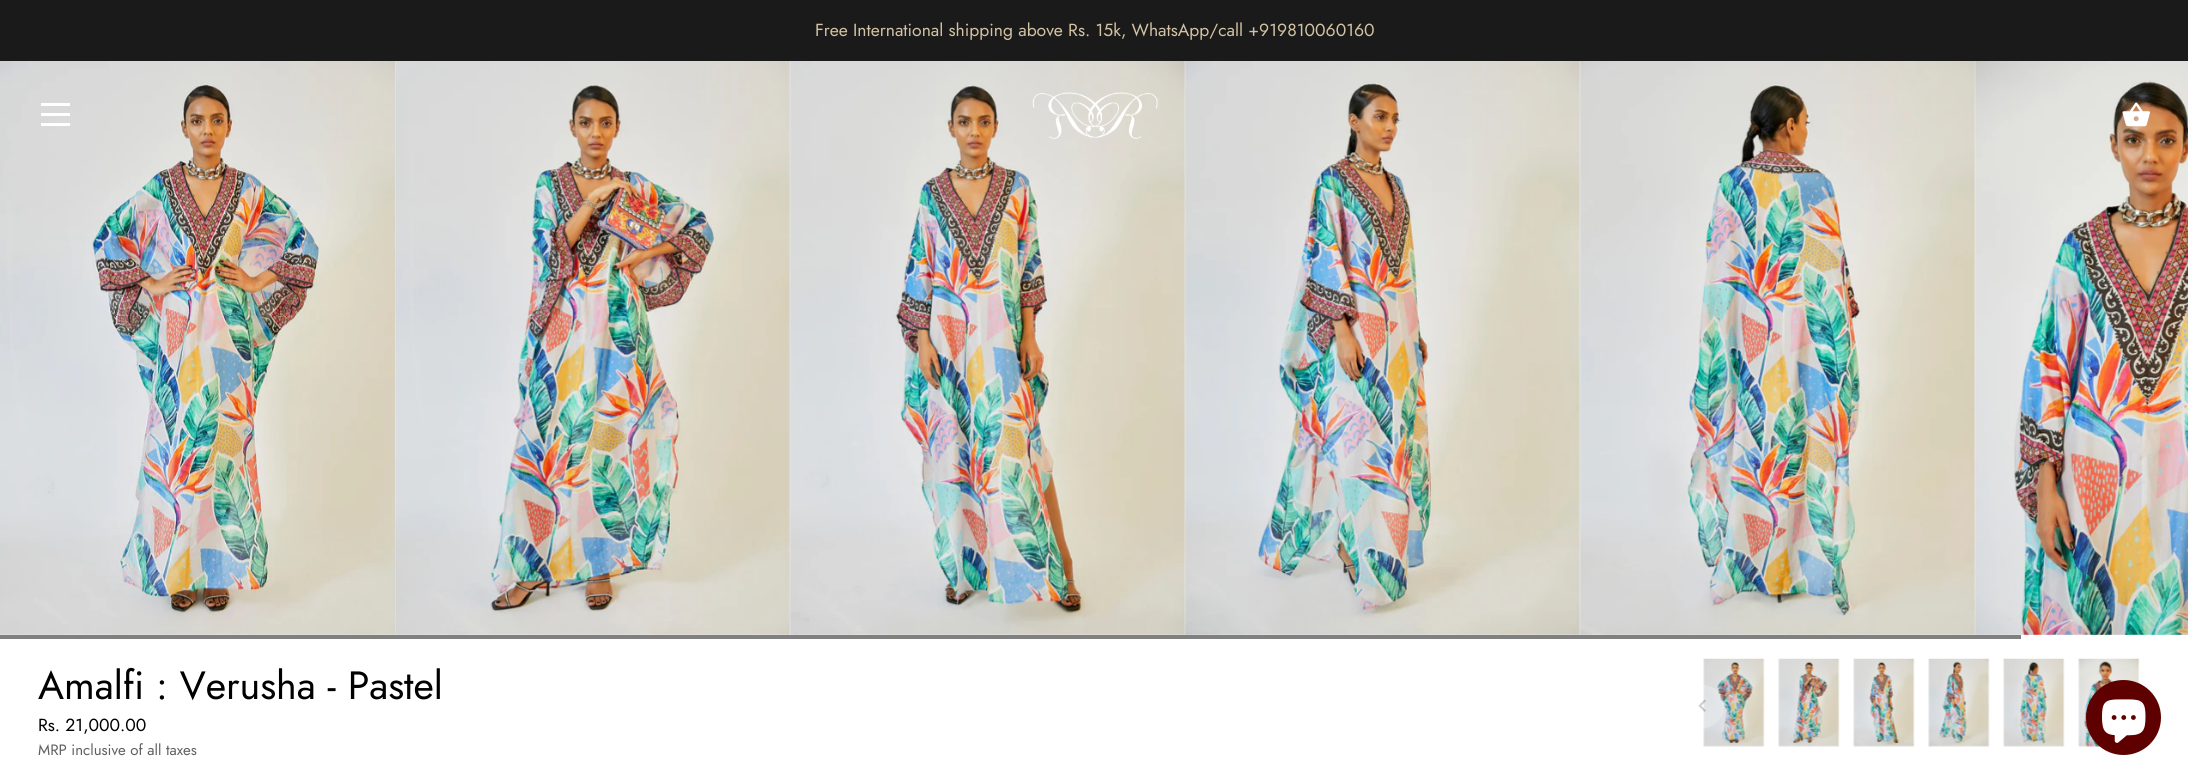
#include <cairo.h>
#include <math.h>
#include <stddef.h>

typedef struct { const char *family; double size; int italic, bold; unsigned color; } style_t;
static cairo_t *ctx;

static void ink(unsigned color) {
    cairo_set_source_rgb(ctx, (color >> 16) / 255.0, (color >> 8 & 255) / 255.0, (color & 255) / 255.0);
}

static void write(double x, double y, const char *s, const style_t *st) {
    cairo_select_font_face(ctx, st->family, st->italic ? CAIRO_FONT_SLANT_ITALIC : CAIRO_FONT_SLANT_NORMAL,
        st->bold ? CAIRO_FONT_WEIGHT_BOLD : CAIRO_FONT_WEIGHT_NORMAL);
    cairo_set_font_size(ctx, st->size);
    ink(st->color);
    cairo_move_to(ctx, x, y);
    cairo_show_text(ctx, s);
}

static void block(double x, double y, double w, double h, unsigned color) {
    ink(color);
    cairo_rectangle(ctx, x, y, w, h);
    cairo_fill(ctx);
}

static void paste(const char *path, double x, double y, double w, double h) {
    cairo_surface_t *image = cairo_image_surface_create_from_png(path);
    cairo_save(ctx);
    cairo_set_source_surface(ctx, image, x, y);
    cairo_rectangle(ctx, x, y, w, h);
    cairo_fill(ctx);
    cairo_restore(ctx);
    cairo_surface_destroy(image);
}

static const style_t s1 = {"Jost", 17.5, 0, 0, 0xd3c3a2};
static const style_t s2 = {"Jost", 39.4, 0, 0, 0x000000};
static const style_t s3 = {"Jost", 17.5, 0, 0, 0x000000};
static const style_t s4 = {"Jost", 15, 0, 0, 0x606060};

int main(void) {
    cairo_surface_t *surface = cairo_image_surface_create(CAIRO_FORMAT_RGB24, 2188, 781);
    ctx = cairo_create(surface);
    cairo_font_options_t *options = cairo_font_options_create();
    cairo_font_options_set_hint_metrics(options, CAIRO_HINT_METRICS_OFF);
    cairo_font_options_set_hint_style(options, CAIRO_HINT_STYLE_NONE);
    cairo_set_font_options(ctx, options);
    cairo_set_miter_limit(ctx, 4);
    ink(0xffffff);
    cairo_paint(ctx);
    block(0, 0, 2188, 61, 0x1a1a1a);
    write(815, 36, "Free International shipping above Rs. 15k, WhatsApp/call +919810060160", &s1);
    paste("pic3.png", 0, 61, 395, 574);
    block(41, 103, 29, 3, 0xffffff);
    block(41, 113, 29, 3, 0xffffff);
    block(41, 123, 29, 3, 0xffffff);
    paste("pic4.png", 394, 61, 397, 574);
    paste("pic5.png", 789, 61, 397, 574);
    paste("pic1.png", 1032, 92, 126, 47);
    paste("pic6.png", 1184, 61, 397, 574);
    paste("pic7.png", 1580, 61, 396, 574);
    paste("pic8.png", 1974, 61, 214, 574);
    paste("pic2.png", 2122, 102, 28, 25);
    block(0, 635, 2021, 4, 0x808080);
    write(38, 699, "Amalfi : Verusha - Pastel", &s2);
    write(38, 731, "Rs. 21,000.00", &s3);
    write(38, 755, "MRP inclusive of all taxes", &s4);
    paste("pic10.png", 1703, 658, 62, 89);
    cairo_set_source_rgba(ctx, 1, 1, 1, 0.25);
    cairo_arc(ctx, 1702.5, 706.5, 21.5, 0, 2 * M_PI);
    cairo_fill(ctx);
    paste("pic9.png", 1698, 699, 8, 13);
    paste("pic11.png", 1778, 658, 62, 89);
    paste("pic12.png", 1853, 658, 62, 89);
    paste("pic13.png", 1928, 658, 62, 89);
    paste("pic14.png", 2003, 658, 62, 89);
    paste("pic15.png", 2078, 658, 62, 89);
    ink(0xffffff);
    cairo_arc(ctx, 2151.5, 706.5, 21.5, 0, 2 * M_PI);
    cairo_fill(ctx);
    ink(0x5e0000);
    cairo_arc(ctx, 2123.5, 717.5, 37.5, 0, 2 * M_PI);
    cairo_fill(ctx);
    paste("pic16.png", 2102, 699, 44, 44);
    cairo_surface_write_to_png(surface, "screenshot.png");
    cairo_font_options_destroy(options);
    cairo_destroy(ctx);
    cairo_surface_destroy(surface);
    return 0;
}
